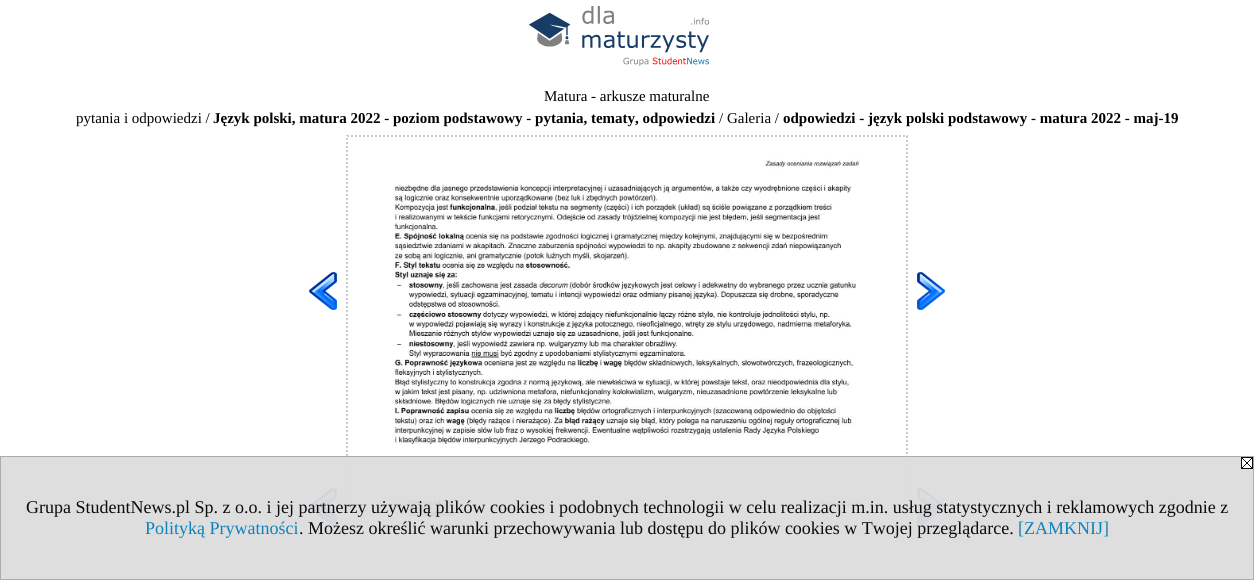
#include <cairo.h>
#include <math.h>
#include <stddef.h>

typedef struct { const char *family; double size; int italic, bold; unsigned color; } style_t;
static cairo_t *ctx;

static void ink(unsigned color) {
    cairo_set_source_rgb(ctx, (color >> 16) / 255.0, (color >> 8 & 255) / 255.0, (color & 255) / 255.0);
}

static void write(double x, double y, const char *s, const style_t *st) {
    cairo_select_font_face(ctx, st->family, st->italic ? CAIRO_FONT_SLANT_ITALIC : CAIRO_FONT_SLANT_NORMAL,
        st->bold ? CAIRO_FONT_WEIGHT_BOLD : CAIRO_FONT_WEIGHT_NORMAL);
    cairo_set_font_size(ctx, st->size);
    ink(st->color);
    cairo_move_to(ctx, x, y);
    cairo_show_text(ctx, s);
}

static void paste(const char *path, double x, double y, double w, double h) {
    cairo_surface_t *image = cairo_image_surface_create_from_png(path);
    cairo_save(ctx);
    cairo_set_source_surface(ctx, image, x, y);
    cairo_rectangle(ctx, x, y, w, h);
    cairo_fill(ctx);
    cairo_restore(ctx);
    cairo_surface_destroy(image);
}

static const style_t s1 = {"Liberation Serif", 15, 0, 0, 0x000000};
static const style_t s2 = {"Liberation Serif", 15, 0, 1, 0x000000};
static const style_t s3 = {"Liberation Serif", 18, 0, 0, 0x0b0b0b};
static const style_t s4 = {"Liberation Serif", 18, 0, 0, 0x0d82bd};

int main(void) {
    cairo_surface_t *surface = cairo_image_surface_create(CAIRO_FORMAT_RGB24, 1254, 580);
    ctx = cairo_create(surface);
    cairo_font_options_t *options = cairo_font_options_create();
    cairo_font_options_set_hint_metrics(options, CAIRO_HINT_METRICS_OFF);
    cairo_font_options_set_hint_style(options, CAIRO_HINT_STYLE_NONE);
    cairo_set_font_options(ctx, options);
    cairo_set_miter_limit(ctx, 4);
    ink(0xffffff);
    cairo_paint(ctx);
    paste("pic1.png", 529, 6, 180, 60);
    write(544, 101, "Matura - arkusze maturalne", &s1);
    write(76, 123, "pytania i odpowiedzi /", &s1);
    write(213, 123, "Język polski, matura 2022 - poziom podstawowy - pytania, tematy, odpowiedzi", &s2);
    write(719, 123, "/ Galeria /", &s1);
    write(783, 123, "odpowiedzi - język polski podstawowy - matura 2022 - maj-19", &s2);
    paste("pic3.png", 392, 159, 468, 359);
    cairo_new_path(ctx);
    cairo_move_to(ctx, 347, 136);
    cairo_line_to(ctx, 907, 136);
    cairo_line_to(ctx, 907, 532);
    cairo_line_to(ctx, 347, 532);
    cairo_close_path(ctx);
    ink(0xcccccc);
    cairo_set_dash(ctx, (double[]){2, 2}, 2, 0);
    cairo_stroke(ctx);
    paste("pic2.png", 309, 272, 28, 38);
    paste("pic4.png", 917, 272, 28, 38);
    paste("pic2.png", 309, 488, 28, 38);
    paste("pic4.png", 917, 488, 28, 38);
    cairo_set_source_rgba(ctx, 0.867, 0.867, 0.867, 0.95);
    cairo_rectangle(ctx, 0, 456, 1254, 124);
    cairo_fill(ctx);
    cairo_rectangle(ctx, 0.5, 456.5, 1253, 123);
    cairo_set_source_rgba(ctx, 0.667, 0.667, 0.667, 0.95);
    cairo_set_line_width(ctx, 1);
    cairo_set_dash(ctx, NULL, 0, 0);
    cairo_stroke(ctx);
    paste("pic5.png", 1241, 457, 12, 12);
    write(26, 513, "Grupa StudentNews.pl Sp. z o.o. i jej partnerzy używają plików cookies i podobnych technologii w celu realizacji m.in. usług statystycznych i reklamowych zgodnie z", &s3);
    write(145, 534, "Polityką Prywatności", &s4);
    write(299, 534, ". Możesz określić warunki przechowywania lub dostępu do plików cookies w Twojej przeglądarce.", &s3);
    write(1018, 534, "[ZAMKNIJ]", &s4);
    cairo_surface_write_to_png(surface, "screenshot.png");
    cairo_font_options_destroy(options);
    cairo_destroy(ctx);
    cairo_surface_destroy(surface);
    return 0;
}
